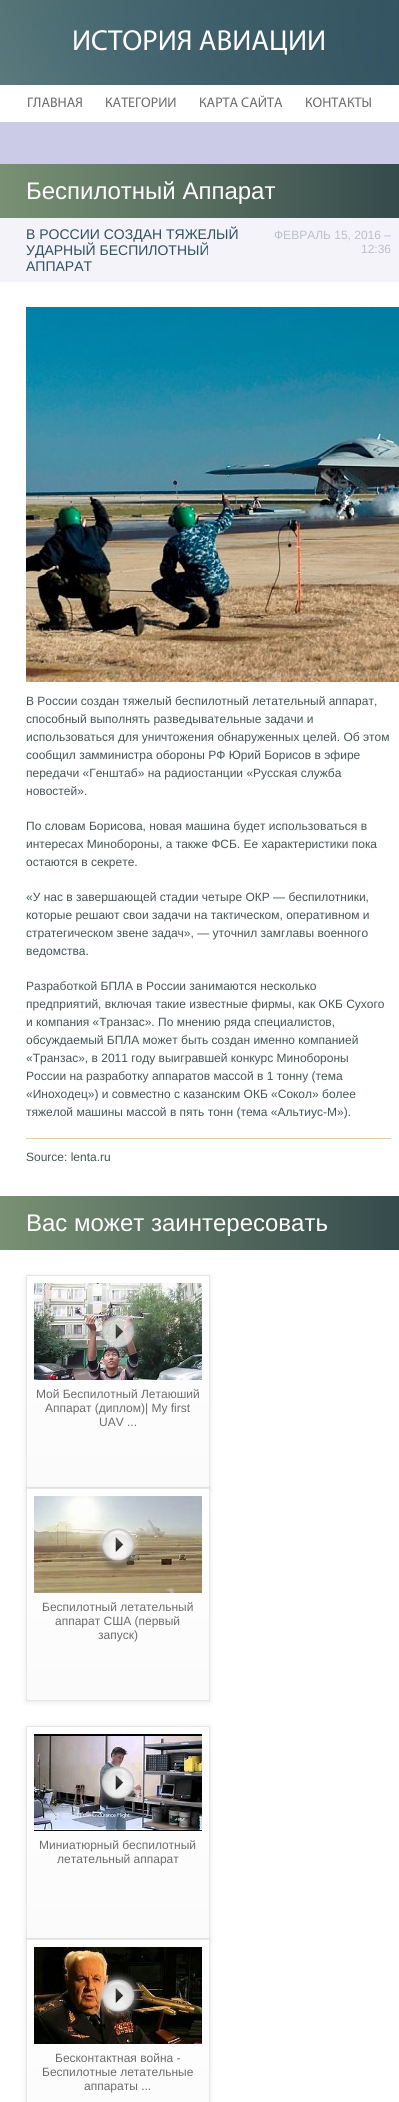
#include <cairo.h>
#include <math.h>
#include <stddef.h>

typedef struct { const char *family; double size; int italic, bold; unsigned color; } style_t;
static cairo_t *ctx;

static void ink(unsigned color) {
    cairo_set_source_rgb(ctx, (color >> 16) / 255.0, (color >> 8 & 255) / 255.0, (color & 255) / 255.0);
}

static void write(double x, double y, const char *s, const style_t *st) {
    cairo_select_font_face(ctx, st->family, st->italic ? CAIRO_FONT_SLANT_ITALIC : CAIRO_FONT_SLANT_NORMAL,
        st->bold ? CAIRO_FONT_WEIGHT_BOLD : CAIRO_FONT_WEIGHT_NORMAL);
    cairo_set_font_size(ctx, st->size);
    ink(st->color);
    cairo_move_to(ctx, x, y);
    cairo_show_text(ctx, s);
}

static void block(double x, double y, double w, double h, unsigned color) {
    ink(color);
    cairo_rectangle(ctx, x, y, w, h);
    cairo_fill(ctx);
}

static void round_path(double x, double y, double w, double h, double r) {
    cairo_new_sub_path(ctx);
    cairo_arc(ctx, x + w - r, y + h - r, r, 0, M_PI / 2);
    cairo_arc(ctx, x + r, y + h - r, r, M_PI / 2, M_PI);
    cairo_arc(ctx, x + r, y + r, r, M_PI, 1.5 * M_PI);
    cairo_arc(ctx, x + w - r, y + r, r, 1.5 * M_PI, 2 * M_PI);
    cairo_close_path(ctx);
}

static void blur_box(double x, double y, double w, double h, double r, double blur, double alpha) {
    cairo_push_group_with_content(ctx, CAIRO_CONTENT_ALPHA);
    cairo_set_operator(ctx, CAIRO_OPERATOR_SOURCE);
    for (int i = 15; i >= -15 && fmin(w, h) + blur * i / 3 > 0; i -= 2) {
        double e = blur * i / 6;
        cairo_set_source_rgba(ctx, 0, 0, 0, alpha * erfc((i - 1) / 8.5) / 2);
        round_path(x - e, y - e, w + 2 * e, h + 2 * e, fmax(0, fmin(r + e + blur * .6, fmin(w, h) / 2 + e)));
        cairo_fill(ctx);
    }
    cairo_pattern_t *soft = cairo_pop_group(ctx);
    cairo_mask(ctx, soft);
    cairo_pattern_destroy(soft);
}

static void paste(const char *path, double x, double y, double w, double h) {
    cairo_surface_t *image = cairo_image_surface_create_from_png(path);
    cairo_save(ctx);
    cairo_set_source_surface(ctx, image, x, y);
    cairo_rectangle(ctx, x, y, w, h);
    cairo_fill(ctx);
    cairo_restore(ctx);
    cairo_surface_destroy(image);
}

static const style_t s1 = {"Myriad", 29, 0, 0, 0xffffff};
static const style_t s2 = {"Myriad", 14, 0, 0, 0x6c6c6c};
static const style_t s3 = {"Liberation Sans", 24, 0, 0, 0xffffff};
static const style_t s4 = {"Liberation Sans", 14, 0, 0, 0x305160};
static const style_t s5 = {"Liberation Sans", 12, 0, 0, 0xbebecc};
static const style_t s6 = {"Liberation Sans", 12, 0, 0, 0x465557};
static const style_t s7 = {"Liberation Sans", 12, 0, 0, 0x6c6c6c};

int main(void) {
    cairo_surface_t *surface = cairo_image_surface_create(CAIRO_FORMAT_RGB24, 399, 2102);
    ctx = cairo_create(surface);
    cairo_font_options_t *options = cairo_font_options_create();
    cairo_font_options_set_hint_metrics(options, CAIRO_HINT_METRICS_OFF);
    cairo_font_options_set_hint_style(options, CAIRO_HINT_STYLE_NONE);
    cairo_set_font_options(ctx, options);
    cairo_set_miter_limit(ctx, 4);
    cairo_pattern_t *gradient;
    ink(0xcbcbe7);
    cairo_paint(ctx);
    paste("pic1.png", 0, 0, 399, 85);
    write(72, 50, "ИСТОРИЯ АВИАЦИИ", &s1);
    block(0, 85, 399, 37, 0xffffff);
    write(27, 107, "ГЛАВНАЯ", &s2);
    write(105, 107, "КАТЕГОРИИ", &s2);
    write(199, 107, "КАРТА САЙТА", &s2);
    write(305, 107, "КОНТАКТЫ", &s2);
    block(0, 282, 399, 1820, 0xffffff);
    gradient = cairo_pattern_create_linear(0, 191, 399, 191);
    cairo_pattern_add_color_stop_rgba(gradient, 0, 0.475, 0.565, 0.455, 1);
    cairo_pattern_add_color_stop_rgba(gradient, 1, 0.208, 0.294, 0.298, 1);
    cairo_set_source(ctx, gradient);
    cairo_pattern_destroy(gradient);
    cairo_rectangle(ctx, 0, 164, 399, 54);
    cairo_fill(ctx);
    write(26, 199, "Беспилотный Аппарат", &s3);
    block(0, 218, 399, 64, 0xf3f3f9);
    write(26, 239, "В РОССИИ СОЗДАН ТЯЖЕЛЫЙ", &s4);
    write(26, 255, "УДАРНЫЙ БЕСПИЛОТНЫЙ", &s4);
    write(26, 271, "АППАРАТ", &s4);
    write(274, 239, "ФЕВРАЛЬ 15, 2016 –", &s5);
    write(361, 253, "12:36", &s5);
    paste("pic2.png", 26, 307, 373, 375);
    write(26, 705, "В России создан тяжелый беспилотный летательный аппарат,", &s6);
    write(26, 723, "способный выполнять разведывательные задачи и", &s6);
    write(26, 741, "использоваться для уничтожения обнаруженных целей. Об этом", &s6);
    write(26, 759, "сообщил замминистра обороны РФ Юрий Борисов в эфире", &s6);
    write(26, 777, "передачи «Генштаб» на радиостанции «Русская служба", &s6);
    write(26, 795, "новостей».", &s6);
    write(26, 830, "По словам Борисова, новая машина будет использоваться в", &s6);
    write(26, 848, "интересах Минобороны, а также ФСБ. Ее характеристики пока", &s6);
    write(26, 866, "остаются в секрете.", &s6);
    write(26, 901, "«У нас в завершающей стадии четыре ОКР — беспилотники,", &s6);
    write(26, 919, "которые решают свои задачи на тактическом, оперативном и", &s6);
    write(26, 937, "стратегическом звене задач», — уточнил замглавы военного", &s6);
    write(26, 955, "ведомства.", &s6);
    write(26, 990, "Разработкой БПЛА в России занимаются несколько", &s6);
    write(26, 1008, "предприятий, включая такие известные фирмы, как ОКБ Сухого", &s6);
    write(26, 1026, "и компания «Транзас». По мнению ряда специалистов,", &s6);
    write(26, 1044, "обсуждаемый БПЛА может быть создан именно компанией", &s6);
    write(26, 1062, "«Транзас», в 2011 году выигравшей конкурс Минобороны", &s6);
    write(26, 1080, "России на разработку аппаратов массой в 1 тонну (тема", &s6);
    write(26, 1098, "«Иноходец») и совместно с казанским ОКБ «Сокол» более", &s6);
    write(26, 1116, "тяжелой машины массой в пять тонн (тема «Альтиус-М»).", &s6);
    block(26, 1138, 365, 1, 0xe7c9ad);
    write(26, 1161, "Source: lenta.ru", &s6);
    gradient = cairo_pattern_create_linear(0, 1223, 399, 1223);
    cairo_pattern_add_color_stop_rgba(gradient, 0, 0.475, 0.565, 0.455, 1);
    cairo_pattern_add_color_stop_rgba(gradient, 1, 0.208, 0.294, 0.298, 1);
    cairo_set_source(ctx, gradient);
    cairo_pattern_destroy(gradient);
    cairo_rectangle(ctx, 0, 1196, 399, 54);
    cairo_fill(ctx);
    write(26, 1231, "Вас может заинтересовать", &s3);
    ink(0x000000);
    blur_box(26, 1276, 184, 213, 0, 2.5, 0.1);
    gradient = cairo_pattern_create_linear(118, 1276, 118, 1487);
    cairo_pattern_add_color_stop_rgba(gradient, 0, 1, 1, 1, 1);
    cairo_pattern_add_color_stop_rgba(gradient, 1, 0.984, 0.984, 0.984, 1);
    cairo_set_source(ctx, gradient);
    cairo_pattern_destroy(gradient);
    cairo_rectangle(ctx, 27, 1276, 182, 211);
    cairo_fill(ctx);
    cairo_rectangle(ctx, 26.5, 1275.5, 183, 212);
    ink(0xe7e7e7);
    cairo_set_line_width(ctx, 1);
    cairo_stroke(ctx);
    paste("pic3.png", 34, 1283, 168, 97);
    write(36, 1398, "Мой Беспилотный Летаюший", &s7);
    write(45, 1412, "Аппарат (диплом)| My first", &s7);
    write(99, 1426, "UAV ...", &s7);
    ink(0x000000);
    blur_box(26, 1489, 184, 213, 0, 2.5, 0.1);
    gradient = cairo_pattern_create_linear(118, 1489, 118, 1700);
    cairo_pattern_add_color_stop_rgba(gradient, 0, 1, 1, 1, 1);
    cairo_pattern_add_color_stop_rgba(gradient, 1, 0.984, 0.984, 0.984, 1);
    cairo_set_source(ctx, gradient);
    cairo_pattern_destroy(gradient);
    cairo_rectangle(ctx, 27, 1489, 182, 211);
    cairo_fill(ctx);
    cairo_rectangle(ctx, 26.5, 1488.5, 183, 212);
    ink(0xe7e7e7);
    cairo_stroke(ctx);
    paste("pic4.png", 34, 1496, 168, 97);
    write(42, 1611, "Беспилотный летательный", &s7);
    write(55, 1625, "аппарат США (первый", &s7);
    write(98, 1639, "запуск)", &s7);
    ink(0x000000);
    blur_box(26, 1727, 184, 213, 0, 2.5, 0.1);
    gradient = cairo_pattern_create_linear(118, 1727, 118, 1938);
    cairo_pattern_add_color_stop_rgba(gradient, 0, 1, 1, 1, 1);
    cairo_pattern_add_color_stop_rgba(gradient, 1, 0.984, 0.984, 0.984, 1);
    cairo_set_source(ctx, gradient);
    cairo_pattern_destroy(gradient);
    cairo_rectangle(ctx, 27, 1727, 182, 211);
    cairo_fill(ctx);
    cairo_rectangle(ctx, 26.5, 1726.5, 183, 212);
    ink(0xe7e7e7);
    cairo_stroke(ctx);
    paste("pic5.png", 34, 1734, 168, 97);
    write(39, 1849, "Миниатюрный беспилотный", &s7);
    write(57, 1863, "летательный аппарат", &s7);
    ink(0x000000);
    blur_box(26, 1940, 184, 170, 0, 2.5, 0.1);
    gradient = cairo_pattern_create_linear(118, 1940, 118, 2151);
    cairo_pattern_add_color_stop_rgba(gradient, 0, 1, 1, 1, 1);
    cairo_pattern_add_color_stop_rgba(gradient, 1, 0.984, 0.984, 0.984, 1);
    cairo_set_source(ctx, gradient);
    cairo_pattern_destroy(gradient);
    cairo_rectangle(ctx, 27, 1940, 182, 162);
    cairo_fill(ctx);
    cairo_rectangle(ctx, 26.5, 1939.5, 183, 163);
    ink(0xe7e7e7);
    cairo_stroke(ctx);
    paste("pic6.png", 34, 1947, 168, 97);
    write(55, 2062, "Бесконтактная война -", &s7);
    write(42, 2076, "Беспилотные летательные", &s7);
    write(84, 2090, "аппараты ...", &s7);
    cairo_surface_write_to_png(surface, "screenshot.png");
    cairo_font_options_destroy(options);
    cairo_destroy(ctx);
    cairo_surface_destroy(surface);
    return 0;
}
